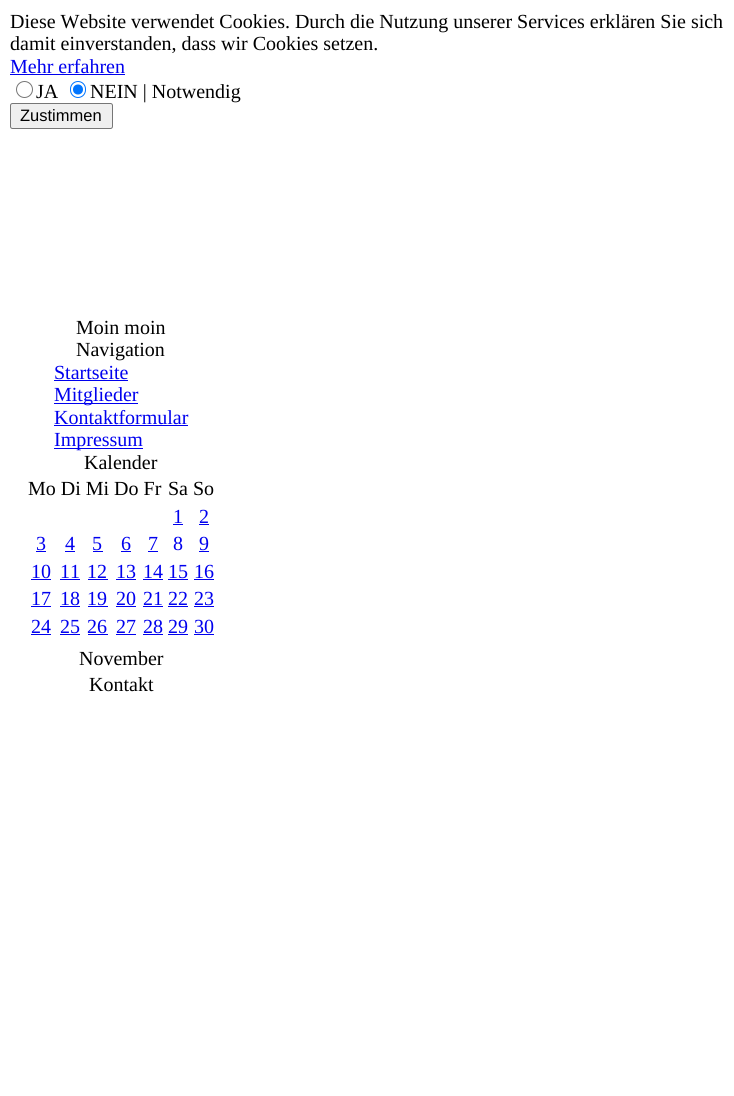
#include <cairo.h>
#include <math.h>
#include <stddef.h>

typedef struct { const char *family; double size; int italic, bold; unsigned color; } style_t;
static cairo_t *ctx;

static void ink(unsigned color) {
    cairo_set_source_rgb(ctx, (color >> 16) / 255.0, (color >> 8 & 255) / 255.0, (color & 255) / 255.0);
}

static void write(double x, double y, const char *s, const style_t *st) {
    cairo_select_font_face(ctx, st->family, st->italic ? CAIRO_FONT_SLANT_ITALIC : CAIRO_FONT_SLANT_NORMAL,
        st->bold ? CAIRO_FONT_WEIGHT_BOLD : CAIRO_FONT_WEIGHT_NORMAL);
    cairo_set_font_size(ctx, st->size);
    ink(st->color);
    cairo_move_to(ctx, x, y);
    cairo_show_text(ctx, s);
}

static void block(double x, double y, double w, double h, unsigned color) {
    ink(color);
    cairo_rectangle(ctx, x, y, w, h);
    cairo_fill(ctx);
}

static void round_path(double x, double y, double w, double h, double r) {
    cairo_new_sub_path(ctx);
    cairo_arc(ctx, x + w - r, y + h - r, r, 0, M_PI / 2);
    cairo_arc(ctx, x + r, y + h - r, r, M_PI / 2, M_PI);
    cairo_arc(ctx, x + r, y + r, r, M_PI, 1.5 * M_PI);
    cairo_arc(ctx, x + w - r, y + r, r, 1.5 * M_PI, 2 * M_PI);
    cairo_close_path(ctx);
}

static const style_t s1 = {"Liberation Serif", 20, 0, 0, 0x000000};
static const style_t s2 = {"Liberation Serif", 20, 0, 0, 0x0000ee};
static const style_t s3 = {"Liberation Sans", 16.5, 0, 0, 0x000000};

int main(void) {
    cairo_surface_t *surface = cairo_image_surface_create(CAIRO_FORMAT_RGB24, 734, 1096);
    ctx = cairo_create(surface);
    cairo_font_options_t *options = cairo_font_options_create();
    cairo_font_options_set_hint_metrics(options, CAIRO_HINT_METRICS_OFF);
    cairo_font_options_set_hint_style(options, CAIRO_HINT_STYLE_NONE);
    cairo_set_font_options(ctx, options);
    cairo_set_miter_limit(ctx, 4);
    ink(0xffffff);
    cairo_paint(ctx);
    write(10, 28, "Diese Website verwendet Cookies. Durch die Nutzung unserer Services erklären Sie sich", &s1);
    write(10, 50, "damit einverstanden, dass wir Cookies setzen.", &s1);
    write(10, 73, "Mehr erfahren", &s2);
    block(10, 74, 115, 1, 0x0000ee);
    cairo_new_path(ctx);
    cairo_arc(ctx, 24.5, 89.5, 8, 0, 2 * M_PI);
    ink(0x767676);
    cairo_set_line_width(ctx, 1);
    cairo_stroke(ctx);
    write(36, 98, "JA", &s1);
    round_path(70.5, 81.5, 15, 16, 7.5);
    ink(0x0075ff);
    cairo_stroke(ctx);
    cairo_arc(ctx, 78, 89.5, 5, 0, 2 * M_PI);
    cairo_fill(ctx);
    write(90, 98, "NEIN | Notwendig", &s1);
    ink(0xefefef);
    round_path(10.5, 103.5, 102, 25, 2);
    cairo_fill_preserve(ctx);
    ink(0x767676);
    cairo_stroke(ctx);
    write(20, 121, "Zustimmen", &s3);
    write(76, 334, "Moin moin", &s1);
    write(76, 356, "Navigation", &s1);
    write(54, 379, "Startseite", &s2);
    block(54, 380, 74, 1, 0x0000ee);
    block(54, 403, 84, 1, 0x0000ee);
    write(54, 401, "Mitglieder", &s2);
    write(54, 424, "Kontaktformular", &s2);
    block(54, 425, 134, 1, 0x0000ee);
    block(54, 448, 89, 1, 0x0000ee);
    write(54, 446, "Impressum", &s2);
    write(84, 469, "Kalender", &s1);
    write(28, 495, "Mo Di Mi Do Fr", &s1);
    write(168, 495, "Sa So", &s1);
    write(173, 523, "1", &s2);
    block(173, 524, 10, 1, 0x0000ee);
    write(199, 523, "2", &s2);
    block(199, 524, 10, 1, 0x0000ee);
    write(36, 550, "3", &s2);
    block(36, 551, 10, 1, 0x0000ee);
    write(65, 550, "4", &s2);
    block(65, 551, 10, 1, 0x0000ee);
    write(92, 550, "5", &s2);
    block(93, 551, 10, 1, 0x0000ee);
    write(121, 550, "6", &s2);
    block(121, 551, 10, 1, 0x0000ee);
    write(148, 550, "7", &s2);
    block(148, 551, 10, 1, 0x0000ee);
    write(173, 550, "8", &s2);
    write(199, 550, "9", &s2);
    block(199, 551, 10, 1, 0x0000ee);
    write(31, 578, "10", &s2);
    block(31, 579, 20, 1, 0x0000ee);
    write(60, 578, "11", &s2);
    block(60, 579, 20, 1, 0x0000ee);
    write(87, 578, "12", &s2);
    block(88, 579, 20, 1, 0x0000ee);
    write(116, 578, "13", &s2);
    block(116, 579, 20, 1, 0x0000ee);
    write(143, 578, "14 15", &s2);
    block(143, 579, 20, 1, 0x0000ee);
    write(194, 578, "16", &s2);
    block(194, 579, 20, 1, 0x0000ee);
    block(168, 579, 20, 1, 0x0000ee);
    write(31, 605, "17", &s2);
    block(31, 606, 20, 1, 0x0000ee);
    write(60, 605, "18", &s2);
    block(60, 606, 20, 1, 0x0000ee);
    write(87, 605, "19", &s2);
    block(88, 606, 20, 1, 0x0000ee);
    write(116, 605, "20", &s2);
    block(116, 606, 20, 1, 0x0000ee);
    write(143, 605, "21 22", &s2);
    block(143, 606, 20, 1, 0x0000ee);
    write(194, 605, "23", &s2);
    block(194, 606, 20, 1, 0x0000ee);
    block(168, 606, 20, 1, 0x0000ee);
    write(31, 633, "24", &s2);
    block(31, 634, 20, 1, 0x0000ee);
    write(60, 633, "25", &s2);
    block(60, 634, 20, 1, 0x0000ee);
    write(87, 633, "26", &s2);
    block(88, 634, 20, 1, 0x0000ee);
    write(116, 633, "27", &s2);
    block(116, 634, 20, 1, 0x0000ee);
    write(143, 633, "28 29", &s2);
    block(143, 634, 20, 1, 0x0000ee);
    write(194, 633, "30", &s2);
    block(194, 634, 20, 1, 0x0000ee);
    block(168, 634, 20, 1, 0x0000ee);
    write(79, 665, "November", &s1);
    write(89, 691, "Kontakt", &s1);
    cairo_surface_write_to_png(surface, "screenshot.png");
    cairo_font_options_destroy(options);
    cairo_destroy(ctx);
    cairo_surface_destroy(surface);
    return 0;
}
